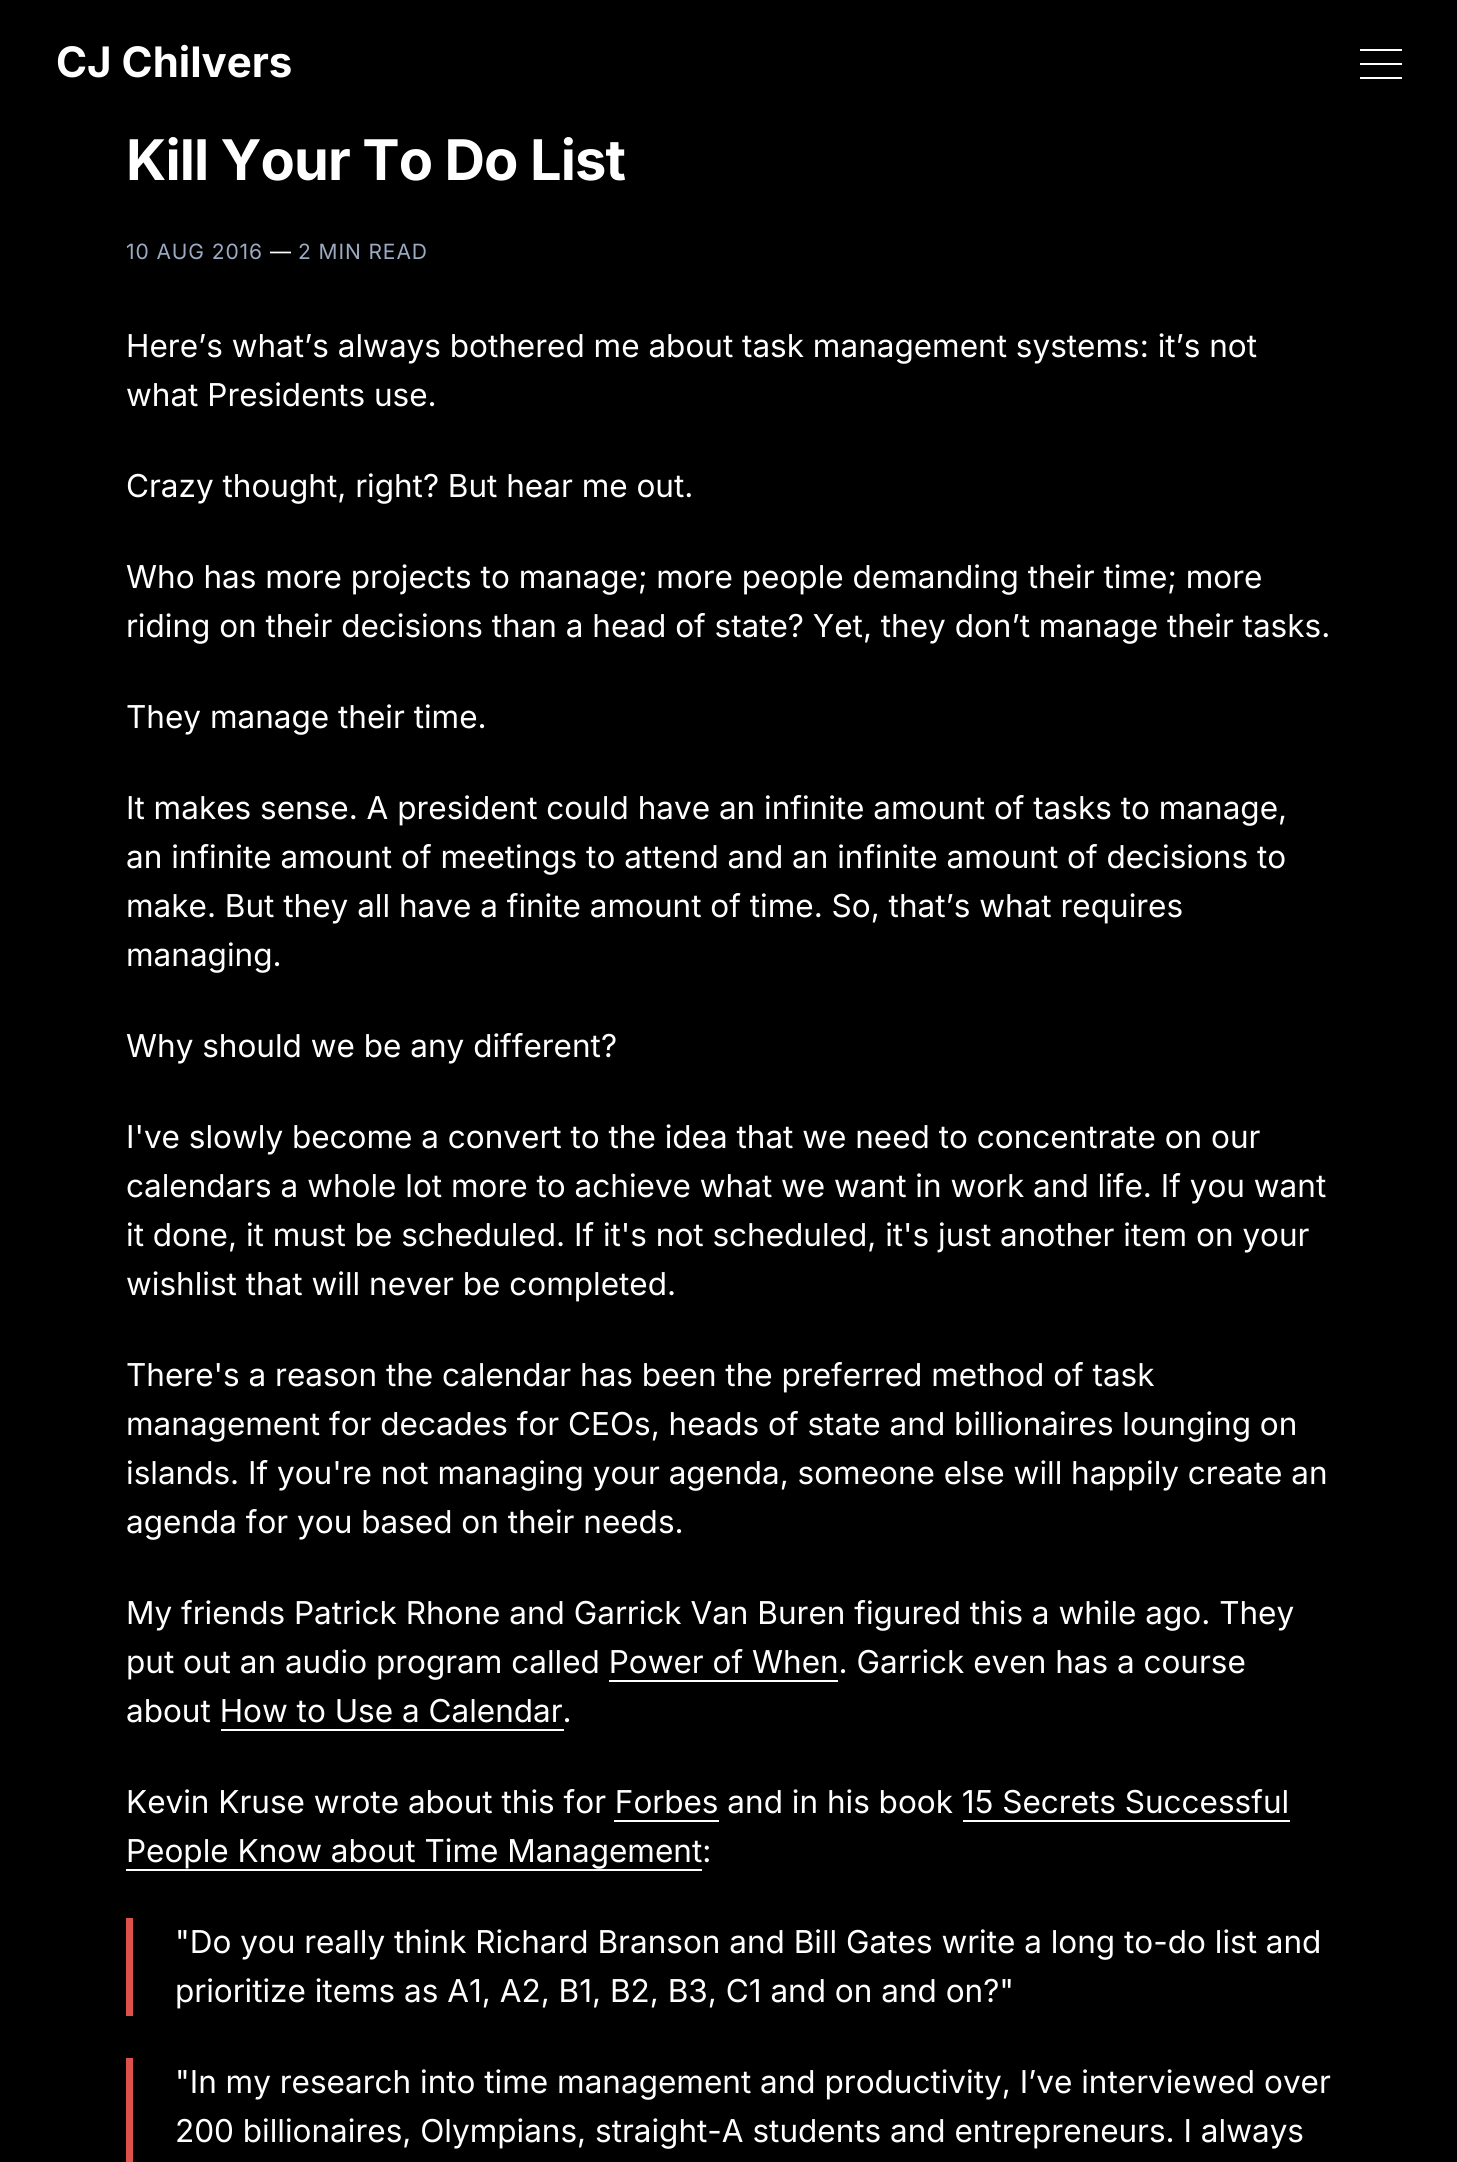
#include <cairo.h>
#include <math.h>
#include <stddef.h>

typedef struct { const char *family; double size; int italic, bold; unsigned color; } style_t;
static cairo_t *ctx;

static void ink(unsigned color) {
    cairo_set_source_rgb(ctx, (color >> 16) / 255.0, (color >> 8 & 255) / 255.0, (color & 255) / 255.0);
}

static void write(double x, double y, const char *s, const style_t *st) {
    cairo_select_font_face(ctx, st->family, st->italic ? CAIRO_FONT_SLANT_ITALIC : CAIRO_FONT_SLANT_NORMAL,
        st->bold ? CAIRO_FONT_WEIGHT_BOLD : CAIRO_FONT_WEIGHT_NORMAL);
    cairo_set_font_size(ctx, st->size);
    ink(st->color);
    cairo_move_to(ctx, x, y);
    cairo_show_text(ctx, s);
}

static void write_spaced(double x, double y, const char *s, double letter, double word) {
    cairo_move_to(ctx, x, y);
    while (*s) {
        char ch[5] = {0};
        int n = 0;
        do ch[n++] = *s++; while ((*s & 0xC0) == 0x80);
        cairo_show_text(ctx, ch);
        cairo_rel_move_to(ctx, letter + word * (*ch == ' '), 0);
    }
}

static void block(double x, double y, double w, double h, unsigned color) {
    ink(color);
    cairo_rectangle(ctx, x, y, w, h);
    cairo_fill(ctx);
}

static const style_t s1 = {"Inter", 42, 0, 1, 0xffffff};
static const style_t s2 = {"Inter", 31.5, 0, 0, 0xffffff};

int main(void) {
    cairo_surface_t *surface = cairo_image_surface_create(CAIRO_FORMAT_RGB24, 1457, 2162);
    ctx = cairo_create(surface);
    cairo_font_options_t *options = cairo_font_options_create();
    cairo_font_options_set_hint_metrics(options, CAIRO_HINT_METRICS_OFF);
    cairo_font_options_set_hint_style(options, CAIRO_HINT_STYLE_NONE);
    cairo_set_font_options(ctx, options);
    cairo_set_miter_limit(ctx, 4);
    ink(0x000000);
    cairo_paint(ctx);
    write(56, 77, "CJ Chilvers", &s1);
    block(1360, 49, 42, 2, 0xffffff);
    block(1360, 63, 42, 2, 0xffffff);
    block(1360, 77, 42, 2, 0xffffff);
    cairo_set_font_size(ctx, 56);
    write_spaced(126, 180, "Kill Your To Do List", -0.9, 0);
    cairo_select_font_face(ctx, "Inter", CAIRO_FONT_SLANT_NORMAL, CAIRO_FONT_WEIGHT_NORMAL);
    cairo_set_font_size(ctx, 21);
    ink(0x9baac1);
    write_spaced(126, 259, "10 AUG 2016", 0.9, 0);
    ink(0xffffff);
    write_spaced(270, 259, "—", 0.9, 0);
    ink(0x9baac1);
    write_spaced(298, 259, "2 MIN READ", 0.9, 0);
    write(126, 357, "Here’s what’s always bothered me about task management systems: it’s not", &s2);
    write(126, 406, "what Presidents use.", &s2);
    write(126, 497, "Crazy thought, right? But hear me out.", &s2);
    write(126, 588, "Who has more projects to manage; more people demanding their time; more", &s2);
    write(126, 637, "riding on their decisions than a head of state? Yet, they don’t manage their tasks.", &s2);
    write(126, 728, "They manage their time.", &s2);
    write(126, 819, "It makes sense. A president could have an infinite amount of tasks to manage,", &s2);
    write(126, 868, "an infinite amount of meetings to attend and an infinite amount of decisions to", &s2);
    write(126, 917, "make. But they all have a finite amount of time. So, that’s what requires", &s2);
    write(126, 966, "managing.", &s2);
    write(126, 1057, "Why should we be any different?", &s2);
    write(126, 1148, "I've slowly become a convert to the idea that we need to concentrate on our", &s2);
    write(126, 1197, "calendars a whole lot more to achieve what we want in work and life. If you want", &s2);
    write(126, 1246, "it done, it must be scheduled. If it's not scheduled, it's just another item on your", &s2);
    write(126, 1295, "wishlist that will never be completed.", &s2);
    write(126, 1386, "There's a reason the calendar has been the preferred method of task", &s2);
    write(126, 1435, "management for decades for CEOs, heads of state and billionaires lounging on", &s2);
    write(126, 1484, "islands. If you're not managing your agenda, someone else will happily create an", &s2);
    write(126, 1533, "agenda for you based on their needs.", &s2);
    write(126, 1624, "My friends Patrick Rhone and Garrick Van Buren figured this a while ago. They", &s2);
    write(126, 1673, "put out an audio program called Power of When. Garrick even has a course", &s2);
    block(609, 1680, 229, 2, 0xffffff);
    write(126, 1722, "about How to Use a Calendar.", &s2);
    block(221, 1729, 343, 2, 0xffffff);
    write(126, 1813, "Kevin Kruse wrote about this for Forbes and in his book 15 Secrets Successful", &s2);
    block(614, 1820, 105, 2, 0xffffff);
    write(126, 1862, "People Know about Time Management:", &s2);
    block(963, 1820, 327, 2, 0xffffff);
    block(126, 1869, 576, 2, 0xffffff);
    block(126, 1918, 7, 98, 0xdc514d);
    write(175, 1953, "\"Do you really think Richard Branson and Bill Gates write a long to-do list and", &s2);
    write(175, 2002, "prioritize items as A1, A2, B1, B2, B3, C1 and on and on?\"", &s2);
    block(126, 2058, 7, 104, 0xdc514d);
    write(175, 2093, "\"In my research into time management and productivity, I’ve interviewed over", &s2);
    write(175, 2142, "200 billionaires, Olympians, straight-A students and entrepreneurs. I always", &s2);
    cairo_surface_write_to_png(surface, "screenshot.png");
    cairo_font_options_destroy(options);
    cairo_destroy(ctx);
    cairo_surface_destroy(surface);
    return 0;
}
